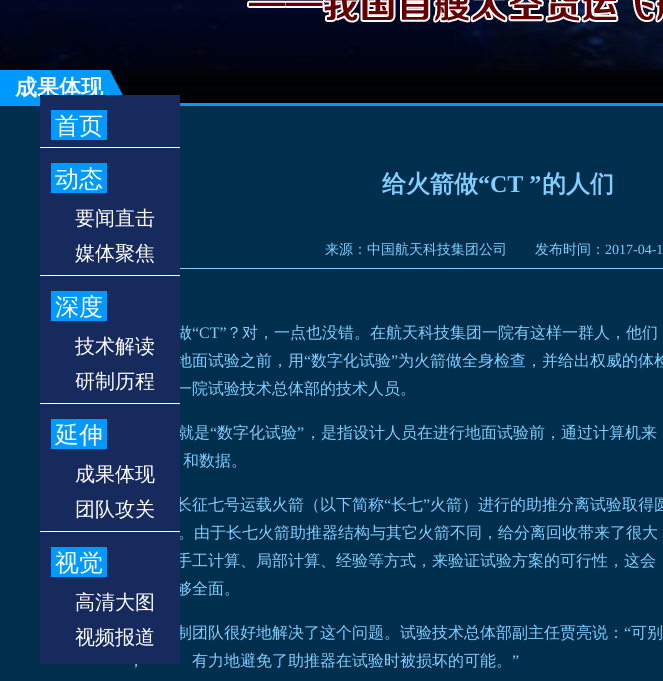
#include <cairo.h>
#include <math.h>
#include <stddef.h>

typedef struct { const char *family; double size; int italic, bold; unsigned color; } style_t;
static cairo_t *ctx;

static void ink(unsigned color) {
    cairo_set_source_rgb(ctx, (color >> 16) / 255.0, (color >> 8 & 255) / 255.0, (color & 255) / 255.0);
}

static void write(double x, double y, const char *s, const style_t *st) {
    cairo_select_font_face(ctx, st->family, st->italic ? CAIRO_FONT_SLANT_ITALIC : CAIRO_FONT_SLANT_NORMAL,
        st->bold ? CAIRO_FONT_WEIGHT_BOLD : CAIRO_FONT_WEIGHT_NORMAL);
    cairo_set_font_size(ctx, st->size);
    ink(st->color);
    cairo_move_to(ctx, x, y);
    cairo_show_text(ctx, s);
}

static void block(double x, double y, double w, double h, unsigned color) {
    ink(color);
    cairo_rectangle(ctx, x, y, w, h);
    cairo_fill(ctx);
}

static void paste(const char *path, double x, double y, double w, double h) {
    cairo_surface_t *image = cairo_image_surface_create_from_png(path);
    cairo_save(ctx);
    cairo_set_source_surface(ctx, image, x, y);
    cairo_rectangle(ctx, x, y, w, h);
    cairo_fill(ctx);
    cairo_restore(ctx);
    cairo_surface_destroy(image);
}

static const style_t s1 = {"WenQuanYi Zen Hei", 22, 0, 1, 0xffffff};
static const style_t s2 = {"WenQuanYi Zen Hei", 24, 0, 1, 0x83cdff};
static const style_t s3 = {"Liberation Serif", 24, 0, 1, 0x83cdff};
static const style_t s4 = {"WenQuanYi Zen Hei Medium", 14, 0, 0, 0x83cdff};
static const style_t s5 = {"Liberation Serif", 14, 0, 0, 0x83cdff};
static const style_t s6 = {"WenQuanYi Zen Hei Medium", 16, 0, 0, 0x83cdff};
static const style_t s7 = {"Liberation Serif", 16, 0, 0, 0x83cdff};
static const style_t s8 = {"WenQuanYi Zen Hei Medium", 24, 0, 0, 0xffffff};
static const style_t s9 = {"WenQuanYi Zen Hei Medium", 20, 0, 0, 0xffffff};

int main(void) {
    cairo_surface_t *surface = cairo_image_surface_create(CAIRO_FORMAT_RGB24, 663, 681);
    ctx = cairo_create(surface);
    cairo_font_options_t *options = cairo_font_options_create();
    cairo_font_options_set_hint_metrics(options, CAIRO_HINT_METRICS_OFF);
    cairo_font_options_set_hint_style(options, CAIRO_HINT_STYLE_NONE);
    cairo_set_font_options(ctx, options);
    cairo_set_miter_limit(ctx, 4);
    ink(0xffffff);
    cairo_paint(ctx);
    paste("pic1.png", 0, 0, 663, 70);
    paste("pic2.png", 247, 0, 416, 23);
    block(0, 106, 663, 575, 0x002e4d);
    paste("pic3.png", 109, 70, 554, 36);
    block(0, 70, 109, 36, 0x0099ff);
    write(15, 95, "成果体现", &s1);
    paste("pic4.png", 109, 70, 14, 25);
    block(180, 268, 483, 1, 0x83cdff);
    write(382, 192, "给火箭做", &s2);
    write(478, 192, "“CT ”", &s3);
    write(542, 192, "的人们", &s2);
    write(325, 254, "来源：中国航天科技集团公司　　发布时间：", &s4);
    write(605, 254, "2017-04-1", &s5);
    write(176, 338, "做", &s6);
    write(192, 338, "“CT”", &s7);
    write(226, 338, "？对，一点也没错。在航天科技集团一院有这样一群人，他们", &s6);
    write(176, 366, "地面试验之前，用", &s6);
    write(304, 366, "“", &s7);
    write(311, 366, "数字化试验", &s6);
    write(391, 366, "”", &s7);
    write(398, 366, "为火箭做全身检查，并给出权威的体检", &s6);
    write(176, 394, "一院试验技术总体部的技术人员。", &s6);
    write(178, 438, "就是", &s6);
    write(210, 438, "“", &s7);
    write(217, 438, "数字化试验", &s6);
    write(297, 438, "”", &s7);
    write(305, 438, "，是指设计人员在进行地面试验前，通过计算机来", &s6);
    write(183, 466, "和数据。", &s6);
    write(176, 510, "长征七号运载火箭（以下简称", &s6);
    write(384, 510, "“", &s7);
    write(391, 510, "长七", &s6);
    write(423, 510, "”", &s7);
    write(430, 510, "火箭）进行的助推分离试验取得圆", &s6);
    write(178, 538, "。由于长七火箭助推器结构与其它火箭不同，给分离回收带来了很大", &s6);
    write(176, 566, "手工计算、局部计算、经验等方式，来验证试验方案的可行性，这会", &s6);
    write(176, 594, "够全面。", &s6);
    write(176, 638, "制团队很好地解决了这个问题。试验技术总体部副主任贾亮说：", &s6);
    write(624, 638, "“", &s7);
    write(631, 638, "可别", &s6);
    write(192, 666, "有力地避免了助推器在试验时被损坏的可能。", &s6);
    write(512, 666, "”", &s7);
    write(128, 666, "，", &s6);
    block(40, 95, 140, 569, 0x172a5d);
    block(40, 147, 140, 1, 0xffffff);
    block(51, 110, 56, 30, 0x0099ff);
    write(55, 134, "首页", &s8);
    block(40, 275, 140, 1, 0xffffff);
    block(51, 163, 56, 30, 0x0099ff);
    write(55, 187, "动态", &s8);
    write(75, 225, "要闻直击", &s9);
    write(75, 260, "媒体聚焦", &s9);
    block(40, 403, 140, 1, 0xffffff);
    block(51, 291, 56, 30, 0x0099ff);
    write(55, 315, "深度", &s8);
    write(75, 353, "技术解读", &s9);
    write(75, 388, "研制历程", &s9);
    block(40, 531, 140, 1, 0xffffff);
    block(51, 419, 56, 30, 0x0099ff);
    write(55, 443, "延伸", &s8);
    write(75, 481, "成果体现", &s9);
    write(75, 516, "团队攻关", &s9);
    block(51, 547, 56, 30, 0x0099ff);
    write(55, 571, "视觉", &s8);
    write(75, 609, "高清大图", &s9);
    write(75, 644, "视频报道", &s9);
    cairo_surface_write_to_png(surface, "screenshot.png");
    cairo_font_options_destroy(options);
    cairo_destroy(ctx);
    cairo_surface_destroy(surface);
    return 0;
}
